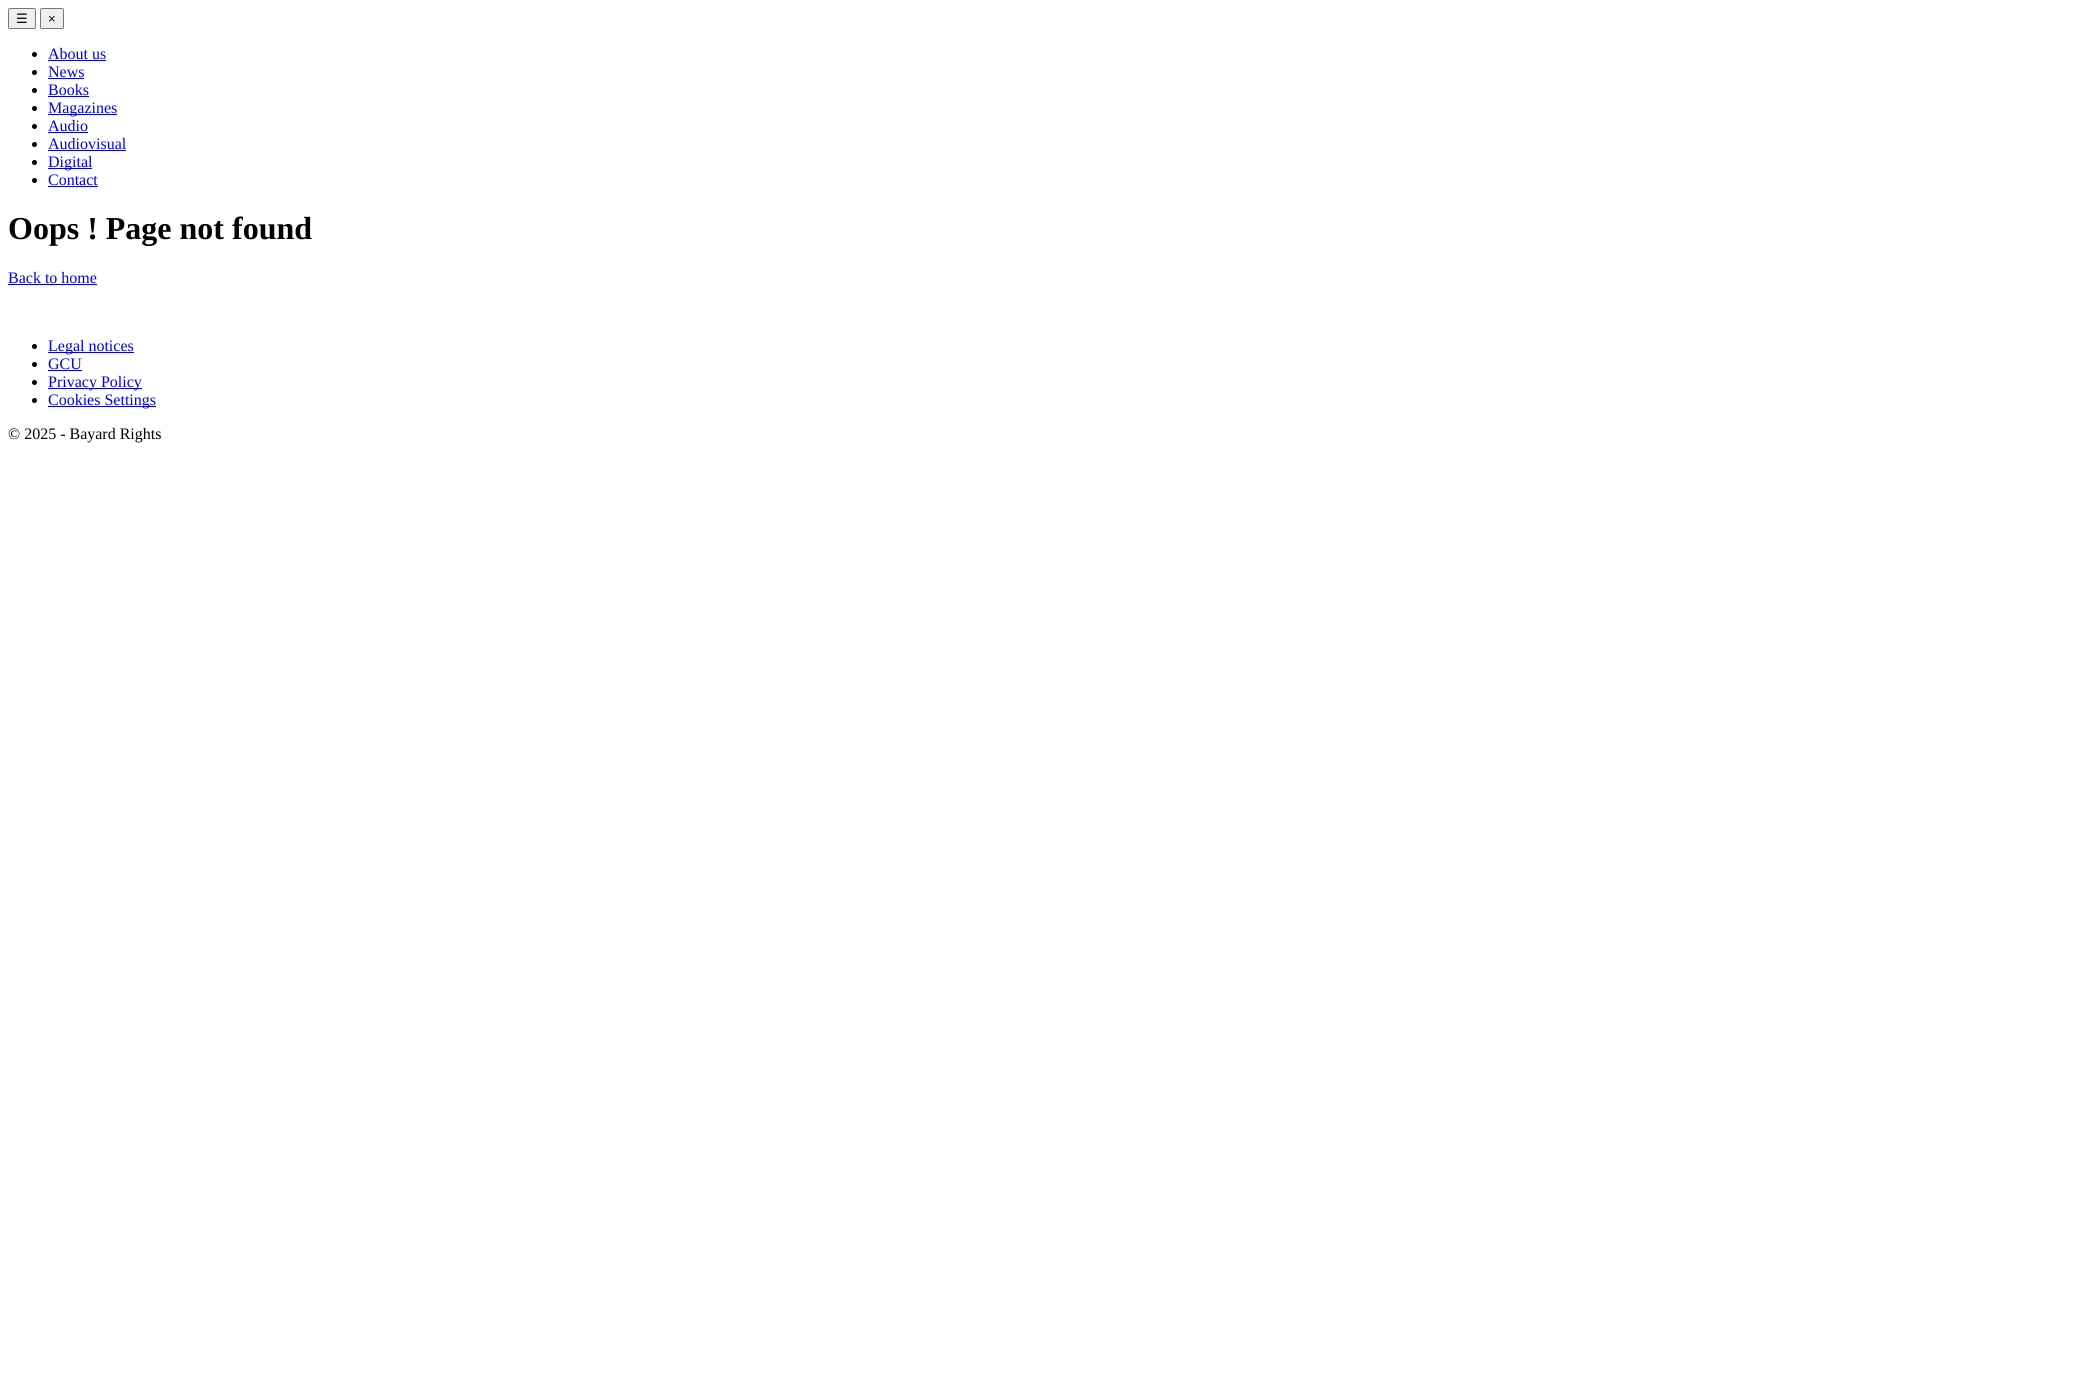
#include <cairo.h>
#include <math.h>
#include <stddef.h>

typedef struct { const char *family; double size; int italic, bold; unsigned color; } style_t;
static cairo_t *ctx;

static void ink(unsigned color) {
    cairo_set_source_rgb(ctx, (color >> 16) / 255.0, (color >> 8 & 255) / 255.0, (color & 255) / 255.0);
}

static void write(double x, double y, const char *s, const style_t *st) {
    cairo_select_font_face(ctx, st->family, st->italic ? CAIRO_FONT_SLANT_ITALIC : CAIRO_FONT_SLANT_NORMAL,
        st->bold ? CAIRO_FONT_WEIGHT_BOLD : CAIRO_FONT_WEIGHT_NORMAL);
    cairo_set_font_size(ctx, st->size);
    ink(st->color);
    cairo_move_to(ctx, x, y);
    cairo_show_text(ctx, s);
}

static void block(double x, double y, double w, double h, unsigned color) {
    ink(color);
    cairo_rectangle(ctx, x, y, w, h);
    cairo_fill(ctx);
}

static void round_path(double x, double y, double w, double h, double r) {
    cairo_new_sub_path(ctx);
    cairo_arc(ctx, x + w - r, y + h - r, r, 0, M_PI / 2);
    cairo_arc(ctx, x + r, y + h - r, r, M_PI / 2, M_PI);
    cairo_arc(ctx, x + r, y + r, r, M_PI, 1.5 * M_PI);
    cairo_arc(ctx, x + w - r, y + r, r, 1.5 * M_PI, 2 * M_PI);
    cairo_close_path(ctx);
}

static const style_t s1 = {"DejaVu Sans", 13, 0, 0, 0x000000};
static const style_t s2 = {"Liberation Sans", 13, 0, 0, 0x000000};
static const style_t s3 = {"Liberation Serif", 16, 0, 0, 0x0000ee};
static const style_t s4 = {"Liberation Serif", 32, 0, 1, 0x000000};
static const style_t s5 = {"Liberation Serif", 16, 0, 0, 0x000000};

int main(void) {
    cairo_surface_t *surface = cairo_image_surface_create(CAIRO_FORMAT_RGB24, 2083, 1399);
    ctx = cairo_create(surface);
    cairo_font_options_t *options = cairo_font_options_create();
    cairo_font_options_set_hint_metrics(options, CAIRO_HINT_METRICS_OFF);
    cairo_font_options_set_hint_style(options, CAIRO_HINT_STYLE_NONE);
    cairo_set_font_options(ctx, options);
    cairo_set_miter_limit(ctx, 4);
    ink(0xffffff);
    cairo_paint(ctx);
    ink(0xefefef);
    round_path(8.5, 8.5, 27, 20, 1.5);
    cairo_fill_preserve(ctx);
    ink(0x767676);
    cairo_set_line_width(ctx, 1);
    cairo_stroke(ctx);
    write(16, 23, "☰", &s1);
    ink(0xefefef);
    round_path(40.5, 8.5, 23, 20, 1.5);
    cairo_fill_preserve(ctx);
    ink(0x767676);
    cairo_stroke(ctx);
    write(48, 23, "×", &s2);
    cairo_new_path(ctx);
    cairo_arc(ctx, 34.5, 54.5, 2.5, 0, 2 * M_PI);
    cairo_fill(ctx);
    write(48, 59, "About us", &s3);
    block(48, 60, 58, 1, 0x0000ee);
    ink(0x000000);
    cairo_new_path(ctx);
    cairo_arc(ctx, 34.5, 72.5, 2.5, 0, 2 * M_PI);
    cairo_fill(ctx);
    write(48, 77, "News", &s3);
    block(48, 78, 36, 1, 0x0000ee);
    ink(0x000000);
    cairo_new_path(ctx);
    cairo_arc(ctx, 34.5, 90.5, 2.5, 0, 2 * M_PI);
    cairo_fill(ctx);
    write(48, 95, "Books", &s3);
    block(48, 96, 41, 1, 0x0000ee);
    ink(0x000000);
    cairo_new_path(ctx);
    cairo_arc(ctx, 34.5, 108.5, 2.5, 0, 2 * M_PI);
    cairo_fill(ctx);
    block(48, 114, 69, 1, 0x0000ee);
    write(48, 113, "Magazines", &s3);
    ink(0x000000);
    cairo_new_path(ctx);
    cairo_arc(ctx, 34.5, 126.5, 2.5, 0, 2 * M_PI);
    cairo_fill(ctx);
    write(48, 131, "Audio", &s3);
    block(48, 132, 40, 1, 0x0000ee);
    ink(0x000000);
    cairo_new_path(ctx);
    cairo_arc(ctx, 34.5, 144.5, 2.5, 0, 2 * M_PI);
    cairo_fill(ctx);
    write(48, 149, "Audiovisual", &s3);
    block(48, 150, 78, 1, 0x0000ee);
    ink(0x000000);
    cairo_new_path(ctx);
    cairo_arc(ctx, 34.5, 162.5, 2.5, 0, 2 * M_PI);
    cairo_fill(ctx);
    block(48, 168, 44, 1, 0x0000ee);
    write(48, 167, "Digital", &s3);
    ink(0x000000);
    cairo_new_path(ctx);
    cairo_arc(ctx, 34.5, 180.5, 2.5, 0, 2 * M_PI);
    cairo_fill(ctx);
    write(48, 185, "Contact", &s3);
    block(48, 186, 50, 1, 0x0000ee);
    write(8, 239, "Oops ! Page not found", &s4);
    write(8, 283, "Back to home", &s3);
    block(8, 284, 89, 1, 0x0000ee);
    ink(0x000000);
    cairo_new_path(ctx);
    cairo_arc(ctx, 34.5, 346.5, 2.5, 0, 2 * M_PI);
    cairo_fill(ctx);
    block(48, 352, 86, 1, 0x0000ee);
    write(48, 351, "Legal notices", &s3);
    ink(0x000000);
    cairo_new_path(ctx);
    cairo_arc(ctx, 34.5, 364.5, 2.5, 0, 2 * M_PI);
    cairo_fill(ctx);
    write(48, 369, "GCU", &s3);
    block(48, 370, 34, 1, 0x0000ee);
    ink(0x000000);
    cairo_new_path(ctx);
    cairo_arc(ctx, 34.5, 382.5, 2.5, 0, 2 * M_PI);
    cairo_fill(ctx);
    block(48, 388, 94, 1, 0x0000ee);
    write(48, 387, "Privacy Policy", &s3);
    ink(0x000000);
    cairo_new_path(ctx);
    cairo_arc(ctx, 34.5, 400.5, 2.5, 0, 2 * M_PI);
    cairo_fill(ctx);
    block(48, 406, 108, 1, 0x0000ee);
    write(48, 405, "Cookies Settings", &s3);
    write(8, 439, "© 2025 - Bayard Rights", &s5);
    cairo_surface_write_to_png(surface, "screenshot.png");
    cairo_font_options_destroy(options);
    cairo_destroy(ctx);
    cairo_surface_destroy(surface);
    return 0;
}
